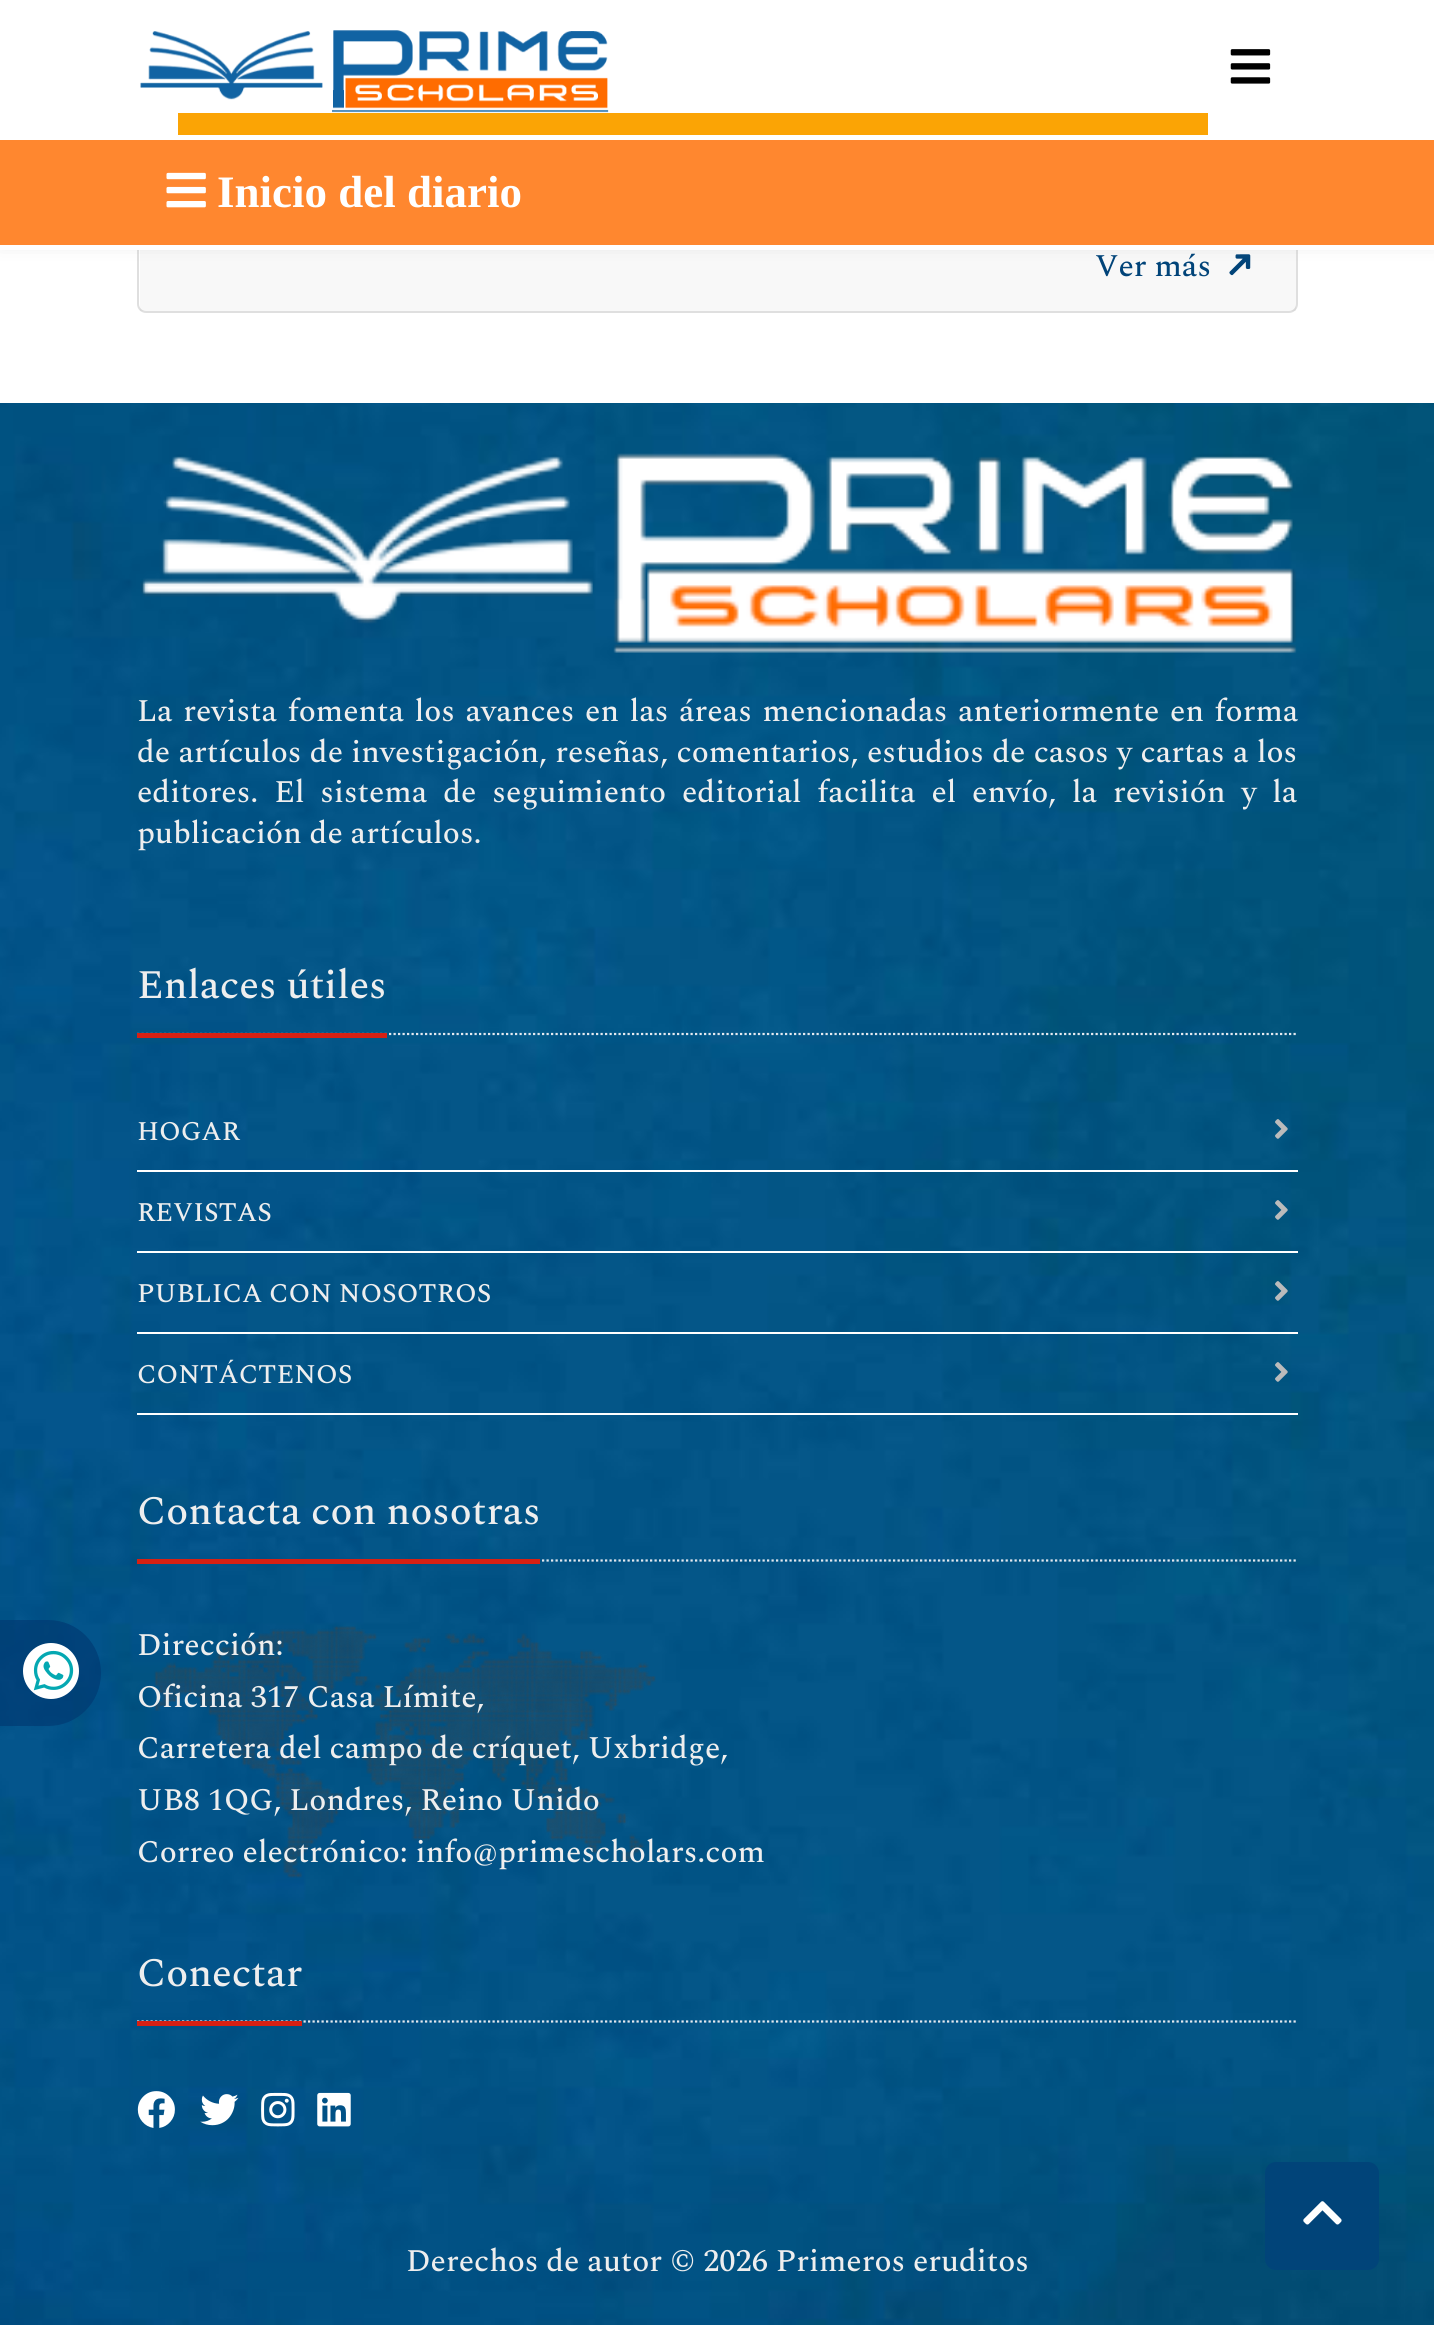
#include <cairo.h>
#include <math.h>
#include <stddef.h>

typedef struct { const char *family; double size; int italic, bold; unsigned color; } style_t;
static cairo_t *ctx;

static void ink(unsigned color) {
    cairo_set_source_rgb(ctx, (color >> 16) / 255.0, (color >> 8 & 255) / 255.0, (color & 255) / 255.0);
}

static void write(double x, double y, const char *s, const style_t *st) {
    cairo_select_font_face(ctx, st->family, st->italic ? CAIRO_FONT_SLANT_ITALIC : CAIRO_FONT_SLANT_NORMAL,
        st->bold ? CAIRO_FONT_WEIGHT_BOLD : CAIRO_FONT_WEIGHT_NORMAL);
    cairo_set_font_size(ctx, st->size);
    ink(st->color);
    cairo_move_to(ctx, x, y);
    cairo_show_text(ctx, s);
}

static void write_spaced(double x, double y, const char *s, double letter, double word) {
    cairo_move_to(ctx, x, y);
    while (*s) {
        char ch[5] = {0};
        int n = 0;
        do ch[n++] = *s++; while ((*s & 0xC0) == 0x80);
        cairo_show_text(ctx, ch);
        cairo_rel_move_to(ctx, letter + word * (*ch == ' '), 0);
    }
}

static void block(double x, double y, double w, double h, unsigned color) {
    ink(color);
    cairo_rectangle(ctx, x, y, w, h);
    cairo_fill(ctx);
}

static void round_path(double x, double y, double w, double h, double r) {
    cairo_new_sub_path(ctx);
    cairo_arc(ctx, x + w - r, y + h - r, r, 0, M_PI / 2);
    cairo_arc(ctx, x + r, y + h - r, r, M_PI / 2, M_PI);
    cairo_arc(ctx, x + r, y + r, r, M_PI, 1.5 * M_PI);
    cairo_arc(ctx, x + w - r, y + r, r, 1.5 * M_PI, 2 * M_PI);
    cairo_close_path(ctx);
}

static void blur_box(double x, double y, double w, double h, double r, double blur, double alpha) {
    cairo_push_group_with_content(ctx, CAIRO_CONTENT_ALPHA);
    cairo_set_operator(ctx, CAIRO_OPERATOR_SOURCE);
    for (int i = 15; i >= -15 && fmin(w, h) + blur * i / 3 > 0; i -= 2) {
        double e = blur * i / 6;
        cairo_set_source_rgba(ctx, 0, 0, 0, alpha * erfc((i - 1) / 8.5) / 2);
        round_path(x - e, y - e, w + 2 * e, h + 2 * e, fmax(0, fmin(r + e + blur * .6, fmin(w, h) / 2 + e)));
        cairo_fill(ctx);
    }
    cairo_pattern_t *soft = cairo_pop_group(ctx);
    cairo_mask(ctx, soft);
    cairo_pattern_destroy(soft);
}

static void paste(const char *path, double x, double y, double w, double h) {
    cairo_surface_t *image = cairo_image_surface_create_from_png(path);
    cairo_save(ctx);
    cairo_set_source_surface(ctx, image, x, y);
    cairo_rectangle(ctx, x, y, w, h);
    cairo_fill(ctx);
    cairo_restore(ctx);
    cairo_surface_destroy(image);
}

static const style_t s1 = {"Liberation Serif", 45, 0, 1, 0xffffff};
static const style_t s2 = {"Spectral Medium", 31.5, 0, 0, 0x014479};
static const style_t s3 = {"Spectral Medium", 31.5, 0, 0, 0xeeeeee};
static const style_t s4 = {"Spectral Medium", 40.5, 0, 0, 0xeeeeee};
static const style_t s5 = {"Spectral Medium", 27, 0, 0, 0xeeeeee};

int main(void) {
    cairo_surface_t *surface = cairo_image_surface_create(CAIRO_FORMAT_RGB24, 1434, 2325);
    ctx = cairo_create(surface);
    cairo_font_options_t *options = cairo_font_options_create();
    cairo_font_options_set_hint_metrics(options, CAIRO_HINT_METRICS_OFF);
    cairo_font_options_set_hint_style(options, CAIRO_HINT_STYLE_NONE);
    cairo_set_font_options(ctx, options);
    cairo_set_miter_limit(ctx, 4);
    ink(0xffffff);
    cairo_paint(ctx);
    round_path(138, -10, 1159, 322, 8);
    ink(0xdfdfdf);
    cairo_stroke(ctx);
    cairo_set_source_rgba(ctx, 0, 0, 0, 0.03);
    cairo_rectangle(ctx, 140, 250, 1156, 61);
    cairo_fill(ctx);
    paste("pic4.png", 1229, 254, 22, 22);
    ink(0x999999);
    blur_box(0, 2, 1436, 232, 0, 11, 1);
    block(0, 0, 1434, 140, 0xffffff);
    paste("pic1.png", 140, 30, 469, 83);
    paste("pic2.png", 1230, 49, 41, 35);
    block(178, 113, 1030, 22, 0xfba405);
    block(0, 140, 1434, 105, 0xff872f);
    block(0, 245, 1434, 5, 0xffffff);
    paste("pic3.png", 166, 172, 40, 36);
    write(217, 207, "Inicio del diario", &s1);
    write(1095, 276, "Ver más", &s2);
    paste("pic6.png", 0, 403, 1434, 1922);
    cairo_set_source_rgba(ctx, 0, 0.224, 0.447, 0.67);
    cairo_new_path(ctx);
    cairo_move_to(ctx, -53, 1620);
    cairo_line_to(ctx, 48, 1620);
    cairo_curve_to(ctx, 77.5, 1620, 101, 1643.5, 101, 1673);
    cairo_curve_to(ctx, 101, 1702.5, 77.5, 1726, 48, 1726);
    cairo_line_to(ctx, -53, 1726);
    cairo_close_path(ctx);
    cairo_fill(ctx);
    ink(0xffffff);
    cairo_arc(ctx, 51, 1671, 28, 0, 2 * M_PI);
    cairo_fill(ctx);
    paste("pic5.png", 33, 1650, 41, 41);
    paste("pic7.png", 140, 453, 1157, 200);
    ink(0xeeeeee);
    write_spaced(137, 721, "La revista fomenta los avances en las áreas mencionadas anteriormente en forma", 0, 2.75);
    write_spaced(137, 762, "de artículos de investigación, reseñas, comentarios, estudios de casos y cartas a los", 0, 0.5);
    write_spaced(137, 802, "editores. El sistema de seguimiento editorial facilita el envío, la revisión y la", 0, 8);
    write(137, 843, "publicación de artículos.", &s3);
    cairo_new_path(ctx);
    cairo_move_to(ctx, 137, 1034);
    cairo_line_to(ctx, 1298, 1034);
    ink(0xe4e9f0);
    cairo_set_line_width(ctx, 2.2);
    cairo_set_dash(ctx, (double[]){2.25, 2.25}, 2, 0);
    cairo_stroke(ctx);
    block(137, 1033, 250, 5, 0xd72013);
    write(137, 998, "Enlaces útiles", &s4);
    block(137, 1170, 1161, 2, 0xffffff);
    write(137, 1140, "HOGAR", &s5);
    paste("pic8.png", 1275, 1119, 13, 20);
    block(137, 1251, 1161, 2, 0xffffff);
    write(137, 1221, "REVISTAS", &s5);
    paste("pic9.png", 1275, 1200, 13, 20);
    block(137, 1332, 1161, 2, 0xffffff);
    write(137, 1302, "PUBLICA CON NOSOTROS", &s5);
    paste("pic10.png", 1275, 1281, 13, 20);
    block(137, 1413, 1161, 2, 0xffffff);
    write(137, 1383, "CONTÁCTENOS", &s5);
    paste("pic11.png", 1275, 1362, 13, 20);
    paste("pic12.png", 154, 1626, 502, 252);
    cairo_new_path(ctx);
    cairo_move_to(ctx, 137, 1560.5);
    cairo_line_to(ctx, 1298, 1560.5);
    ink(0xe4e9f0);
    cairo_stroke(ctx);
    block(137, 1559, 403, 5, 0xd72013);
    write(137, 1524, "Contacta con nosotras", &s4);
    write(137, 1655, "Dirección:", &s3);
    write(137, 1707, "Oficina 317 Casa Límite,", &s3);
    write(137, 1758, "Carretera del campo de críquet, Uxbridge,", &s3);
    write(137, 1810, "UB8 1QG, Londres, Reino Unido", &s3);
    write(137, 1862, "Correo electrónico: info@primescholars.com", &s3);
    cairo_new_path(ctx);
    cairo_move_to(ctx, 137, 2021.5);
    cairo_line_to(ctx, 1298, 2021.5);
    ink(0xe4e9f0);
    cairo_stroke(ctx);
    block(137, 2021, 165, 5, 0xd72013);
    write(137, 1986, "Conectar", &s4);
    paste("pic13.png", 137, 2091, 38, 37);
    paste("pic14.png", 200, 2094, 39, 32);
    paste("pic15.png", 261, 2092, 34, 35);
    paste("pic16.png", 317, 2092, 34, 35);
    write(406, 2271, "Derechos de autor © 2026 Primeros eruditos", &s3);
    ink(0x014479);
    round_path(1266, 2163, 112, 106, 10);
    cairo_fill_preserve(ctx);
    cairo_set_line_width(ctx, 2);
    cairo_set_dash(ctx, NULL, 0, 0);
    cairo_stroke(ctx);
    paste("pic17.png", 1303, 2201, 39, 24);
    cairo_surface_write_to_png(surface, "screenshot.png");
    cairo_font_options_destroy(options);
    cairo_destroy(ctx);
    cairo_surface_destroy(surface);
    return 0;
}
